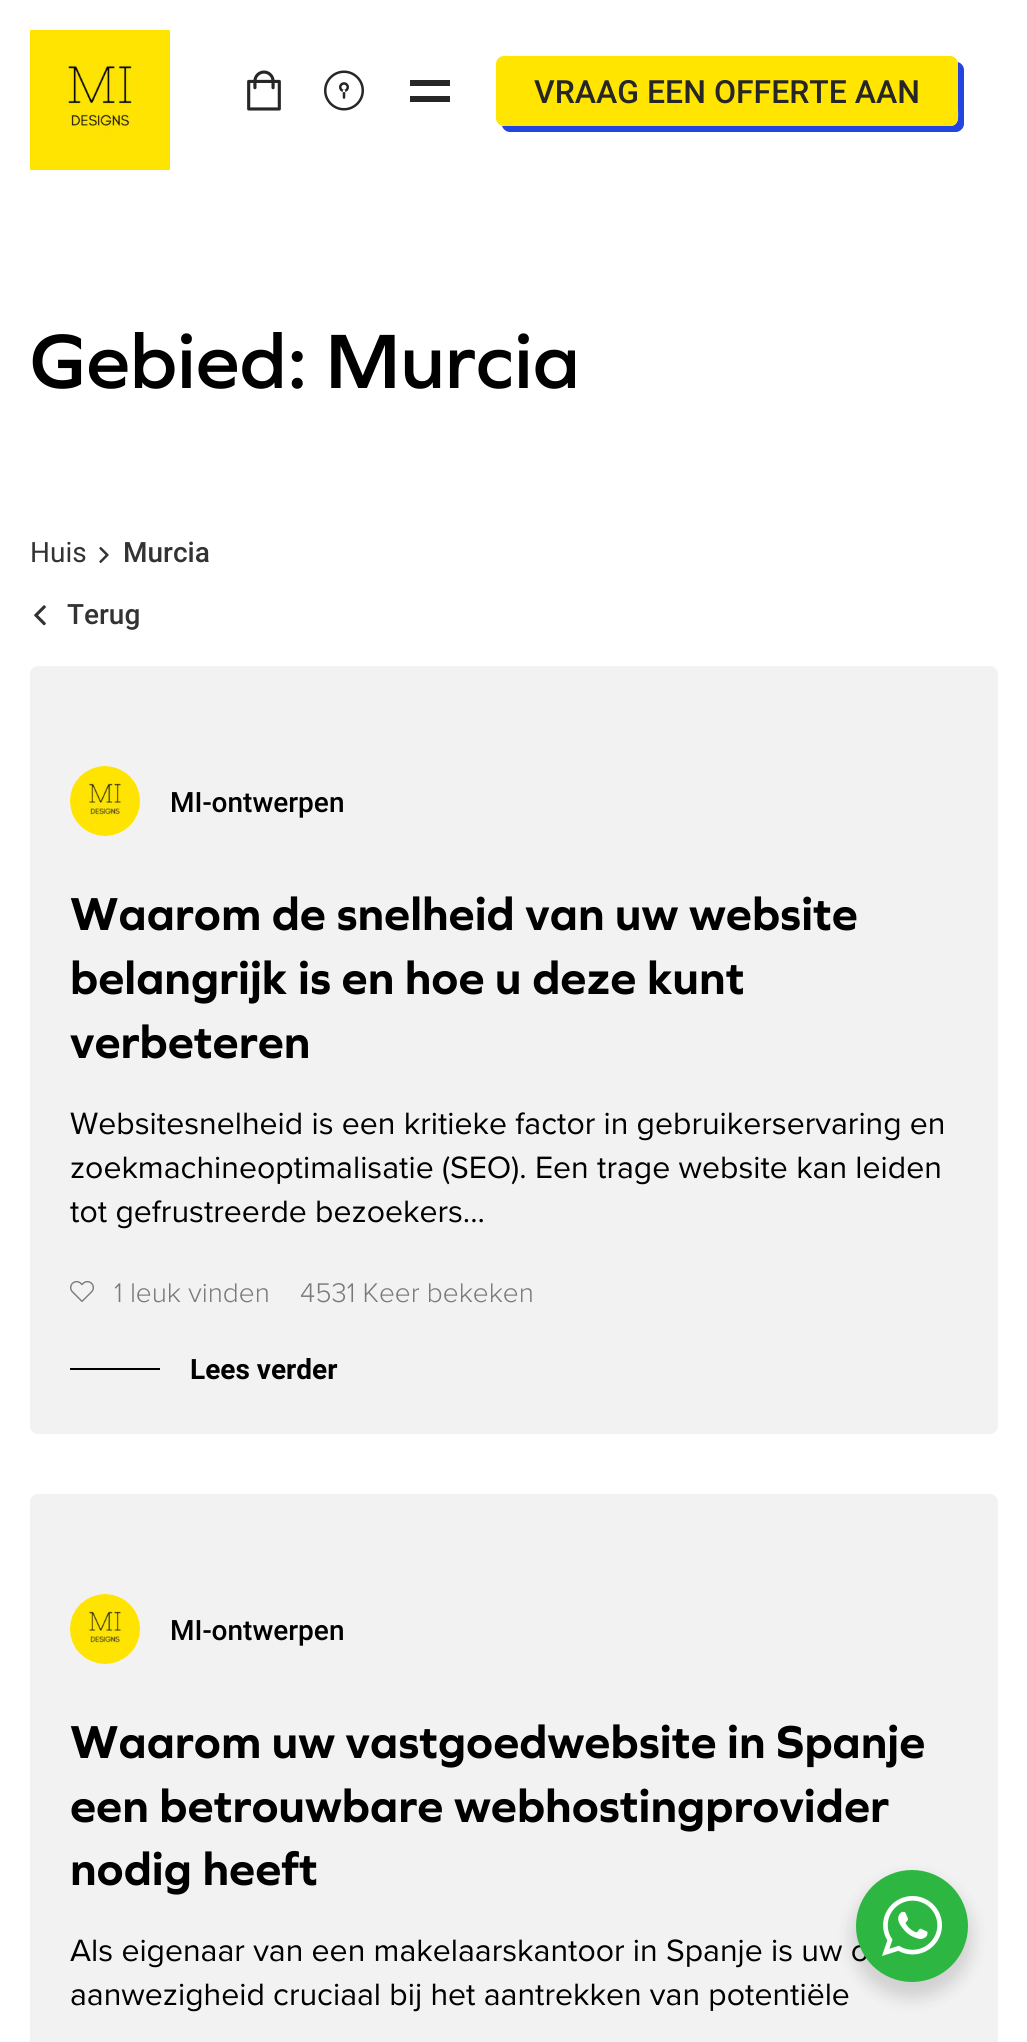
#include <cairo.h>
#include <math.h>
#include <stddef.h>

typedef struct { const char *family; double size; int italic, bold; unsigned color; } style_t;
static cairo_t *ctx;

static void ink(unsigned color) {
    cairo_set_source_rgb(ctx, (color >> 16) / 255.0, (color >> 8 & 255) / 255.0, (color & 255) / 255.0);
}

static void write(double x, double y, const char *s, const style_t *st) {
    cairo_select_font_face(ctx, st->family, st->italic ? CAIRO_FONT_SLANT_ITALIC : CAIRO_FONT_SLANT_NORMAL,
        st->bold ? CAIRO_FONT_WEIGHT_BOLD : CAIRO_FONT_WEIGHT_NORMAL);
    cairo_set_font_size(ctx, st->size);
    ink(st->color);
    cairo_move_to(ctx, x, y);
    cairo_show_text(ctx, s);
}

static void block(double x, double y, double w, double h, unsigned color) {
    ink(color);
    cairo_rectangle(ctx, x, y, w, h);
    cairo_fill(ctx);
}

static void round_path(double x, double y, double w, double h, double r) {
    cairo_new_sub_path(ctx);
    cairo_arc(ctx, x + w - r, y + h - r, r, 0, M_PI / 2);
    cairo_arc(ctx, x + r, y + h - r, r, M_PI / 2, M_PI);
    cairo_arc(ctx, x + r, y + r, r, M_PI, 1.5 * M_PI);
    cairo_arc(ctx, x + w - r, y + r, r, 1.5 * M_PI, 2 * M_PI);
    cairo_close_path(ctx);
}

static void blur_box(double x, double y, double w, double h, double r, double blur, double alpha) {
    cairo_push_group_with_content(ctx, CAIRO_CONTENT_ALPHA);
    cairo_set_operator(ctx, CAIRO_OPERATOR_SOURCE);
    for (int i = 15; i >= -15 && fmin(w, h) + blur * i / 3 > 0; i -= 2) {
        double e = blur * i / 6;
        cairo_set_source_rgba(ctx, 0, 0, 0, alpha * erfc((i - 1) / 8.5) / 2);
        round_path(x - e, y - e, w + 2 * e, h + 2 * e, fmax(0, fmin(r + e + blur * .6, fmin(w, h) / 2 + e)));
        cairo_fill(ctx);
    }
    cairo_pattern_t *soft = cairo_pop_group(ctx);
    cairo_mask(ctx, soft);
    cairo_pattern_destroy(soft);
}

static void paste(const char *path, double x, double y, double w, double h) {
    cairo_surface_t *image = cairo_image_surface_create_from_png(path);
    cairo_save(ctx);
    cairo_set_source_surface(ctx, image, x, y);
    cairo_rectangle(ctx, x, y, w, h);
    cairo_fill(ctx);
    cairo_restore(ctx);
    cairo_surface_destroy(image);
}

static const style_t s1 = {"Roboto Medium", 32, 0, 0, 0x272626};
static const style_t s2 = {"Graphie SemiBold", 80, 0, 0, 0x000000};
static const style_t s3 = {"Roboto", 28, 0, 0, 0x333333};
static const style_t s4 = {"Roboto Medium", 28, 0, 0, 0x333333};
static const style_t s5 = {"Roboto Medium", 28, 0, 0, 0x000000};
static const style_t s6 = {"Graphie", 48, 0, 1, 0x000000};
static const style_t s7 = {"Proxima Nova", 32, 0, 0, 0x000000};
static const style_t s8 = {"Proxima Nova Light", 28, 0, 0, 0x79797a};
static const style_t s9 = {"Roboto", 28, 0, 1, 0x000000};

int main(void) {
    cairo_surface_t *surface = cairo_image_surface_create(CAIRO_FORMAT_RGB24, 1027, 2042);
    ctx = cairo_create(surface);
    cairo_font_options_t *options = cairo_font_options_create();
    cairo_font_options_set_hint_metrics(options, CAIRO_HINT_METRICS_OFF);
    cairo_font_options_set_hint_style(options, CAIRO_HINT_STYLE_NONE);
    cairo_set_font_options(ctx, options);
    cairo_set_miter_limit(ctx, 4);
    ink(0xffffff);
    cairo_paint(ctx);
    paste("pic1.png", 30, 30, 140, 140);
    paste("pic2.png", 247, 70, 34, 41);
    paste("pic3.png", 324, 70, 40, 41);
    block(410, 80, 40, 6, 0x272626);
    block(410, 96, 40, 6, 0x272626);
    ink(0x2244e0);
    cairo_new_path(ctx);
    cairo_move_to(ctx, 502, 126);
    cairo_curve_to(ctx, 503, 129, 506, 132, 510, 132);
    cairo_line_to(ctx, 956, 132);
    cairo_curve_to(ctx, 960, 132, 964, 128, 964, 124);
    cairo_line_to(ctx, 964, 70);
    cairo_curve_to(ctx, 964, 66, 961, 63, 958, 62);
    cairo_line_to(ctx, 958, 109);
    cairo_curve_to(ctx, 958, 115, 960, 126, 950, 126);
    cairo_close_path(ctx);
    cairo_fill(ctx);
    ink(0xffe500);
    round_path(496, 56, 462, 70, 8);
    cairo_fill(ctx);
    write(534, 103, "VRAAG EEN OFFERTE AAN", &s1);
    write(30, 388, "Gebied: Murcia", &s2);
    write(30, 562, "Huis", &s3);
    paste("pic4.png", 99, 547, 10, 16);
    write(123, 562, "Murcia", &s4);
    paste("pic5.png", 34, 605, 12, 21);
    write(67, 624, "Terug", &s4);
    ink(0xf2f2f3);
    round_path(30, 666, 968, 768, 8);
    cairo_fill(ctx);
    paste("pic6.png", 70, 766, 70, 70);
    write(170, 812, "MI-ontwerpen", &s5);
    write(70, 930, "Waarom de snelheid van uw website", &s6);
    write(70, 994, "belangrijk is en hoe u deze kunt", &s6);
    write(70, 1058, "verbeteren", &s6);
    write(70, 1134, "Websitesnelheid is een kritieke factor in gebruikerservaring en", &s7);
    write(70, 1178, "zoekmachineoptimalisatie (SEO). Een trage website kan leiden", &s7);
    write(70, 1222, "tot gefrustreerde bezoekers...", &s7);
    paste("pic7.png", 70, 1281, 24, 21);
    write(114, 1302, "1 leuk vinden", &s8);
    write(300, 1302, "4531 Keer bekeken", &s8);
    block(70, 1368, 90, 2, 0x000000);
    write(190, 1379, "Lees verder", &s9);
    ink(0xf2f2f3);
    round_path(30, 1494, 968, 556, 8);
    cairo_fill(ctx);
    paste("pic6.png", 70, 1594, 70, 70);
    write(170, 1640, "MI-ontwerpen", &s5);
    write(70, 1758, "Waarom uw vastgoedwebsite in Spanje", &s6);
    write(70, 1822, "een betrouwbare webhostingprovider", &s6);
    write(70, 1885, "nodig heeft", &s6);
    write(70, 1961, "Als eigenaar van een makelaarskantoor in Spanje is uw o", &s7);
    write(70, 2005, "aanwezigheid cruciaal bij het aantrekken van potentiële", &s7);
    ink(0x000000);
    blur_box(852, 1878, 120, 120, 60, 8, 0.14);
    ink(0x2db742);
    cairo_arc(ctx, 912, 1926, 56, 0, 2 * M_PI);
    cairo_fill(ctx);
    paste("pic8.png", 882, 1896, 60, 60);
    cairo_surface_write_to_png(surface, "screenshot.png");
    cairo_font_options_destroy(options);
    cairo_destroy(ctx);
    cairo_surface_destroy(surface);
    return 0;
}
